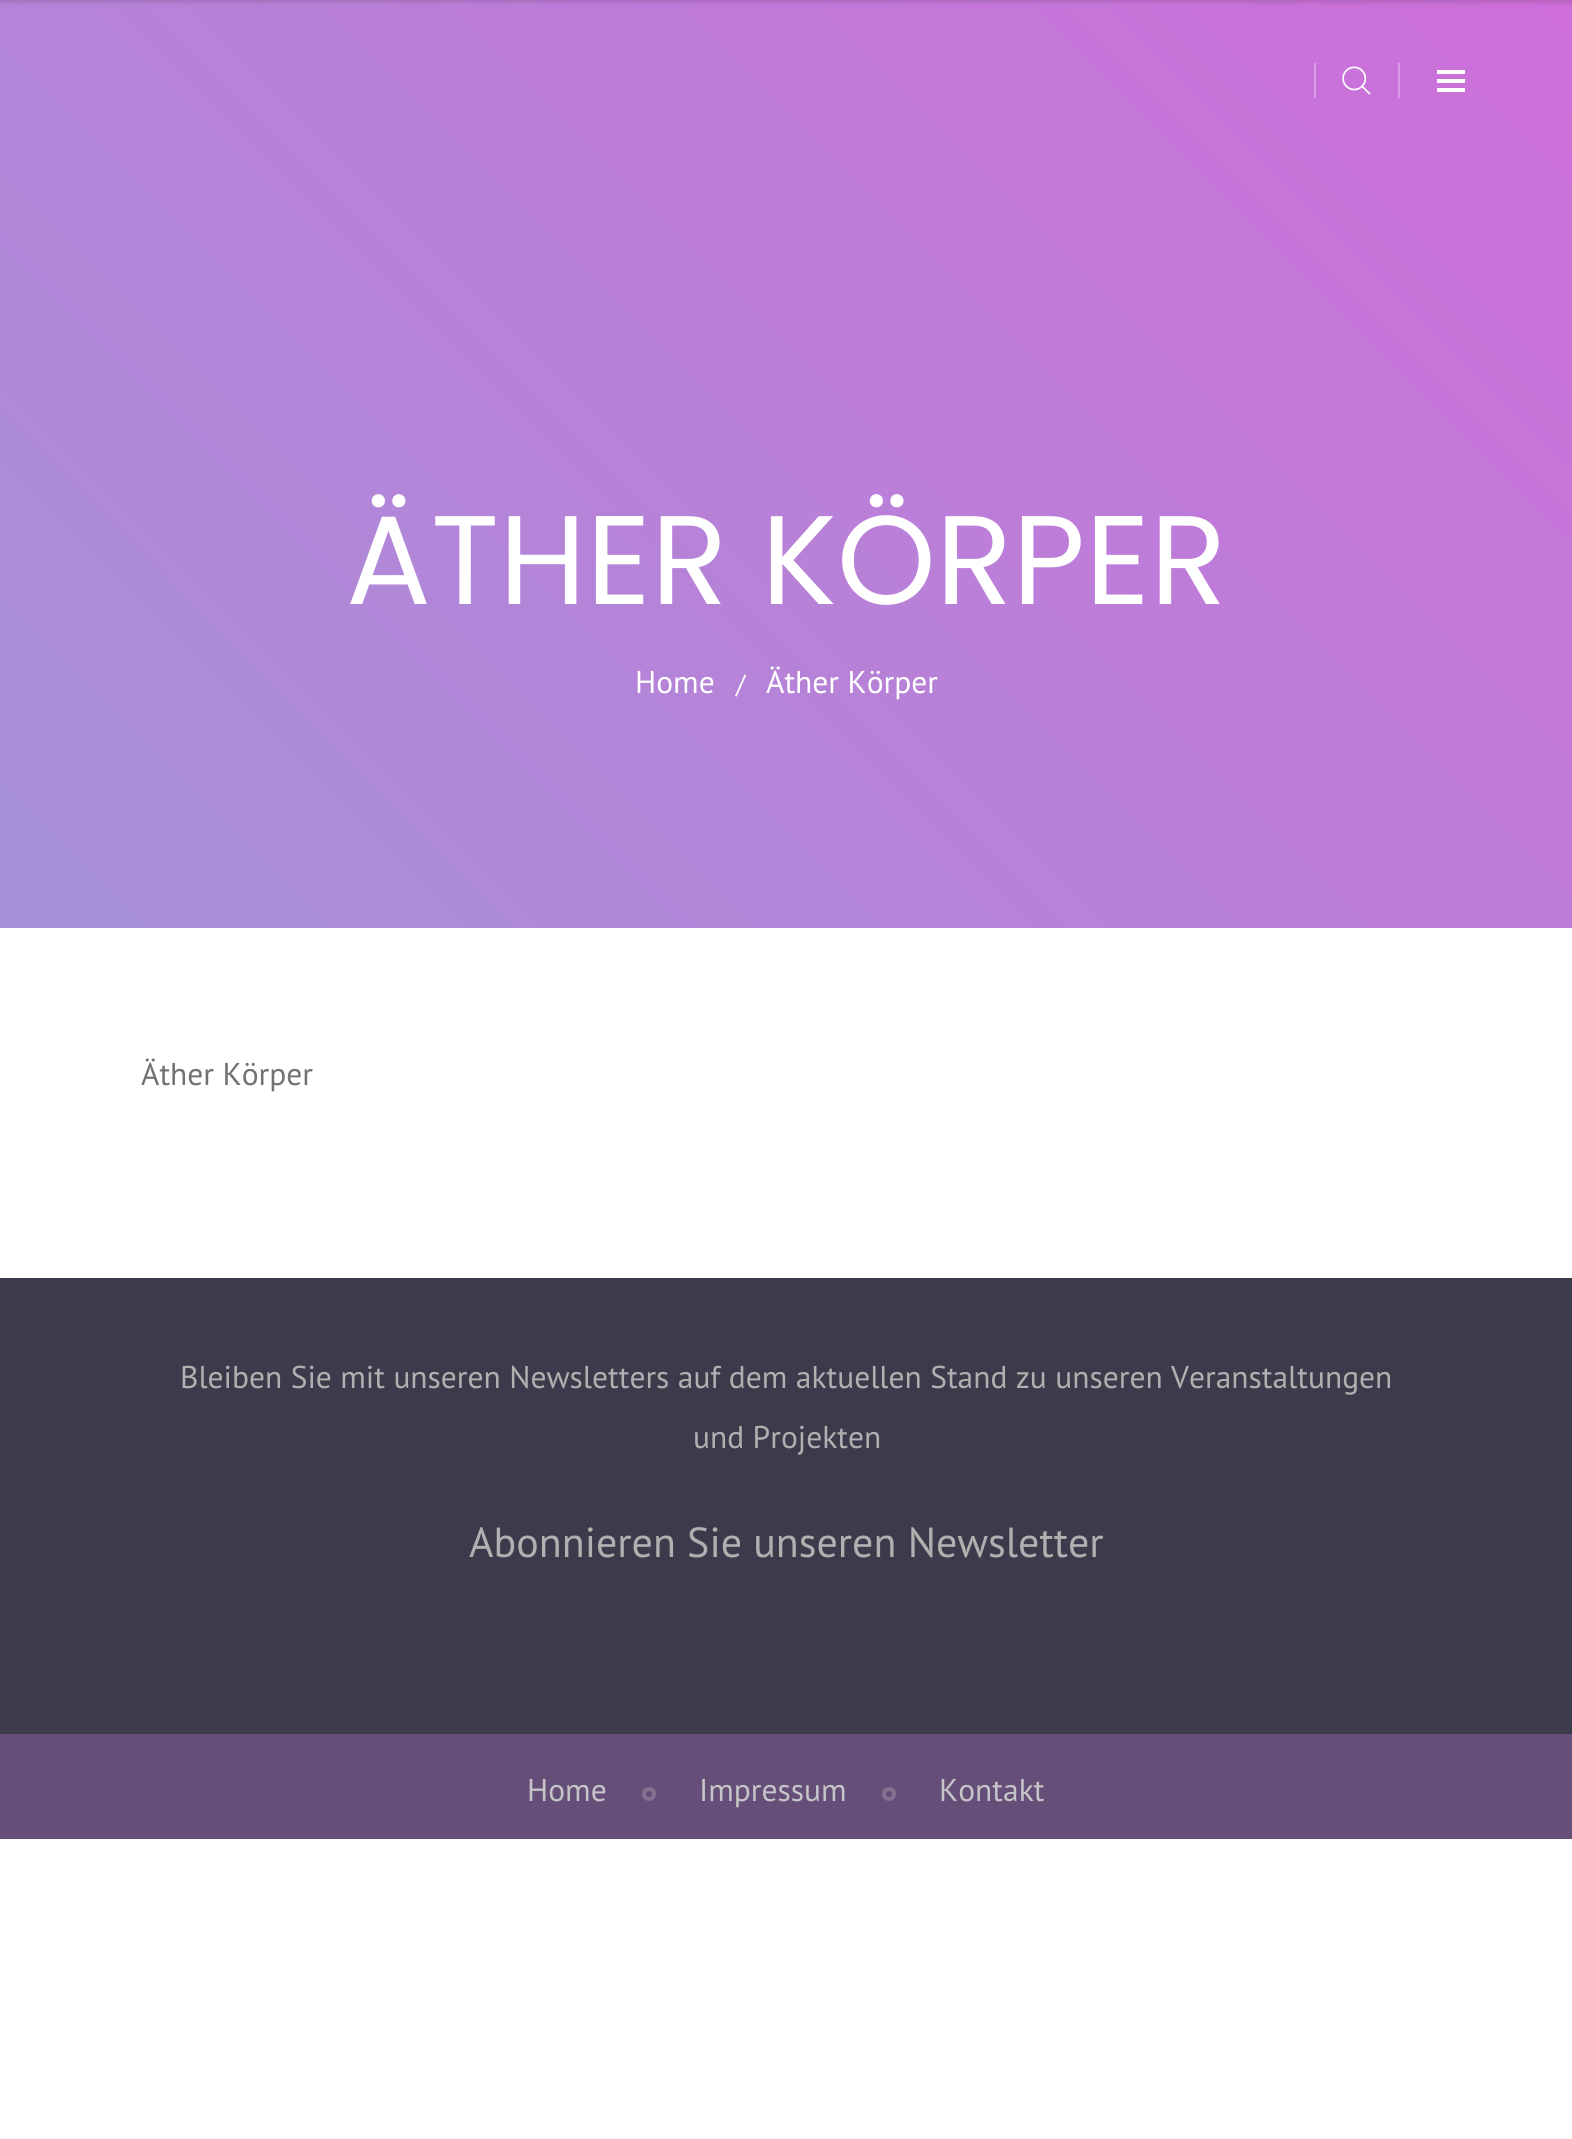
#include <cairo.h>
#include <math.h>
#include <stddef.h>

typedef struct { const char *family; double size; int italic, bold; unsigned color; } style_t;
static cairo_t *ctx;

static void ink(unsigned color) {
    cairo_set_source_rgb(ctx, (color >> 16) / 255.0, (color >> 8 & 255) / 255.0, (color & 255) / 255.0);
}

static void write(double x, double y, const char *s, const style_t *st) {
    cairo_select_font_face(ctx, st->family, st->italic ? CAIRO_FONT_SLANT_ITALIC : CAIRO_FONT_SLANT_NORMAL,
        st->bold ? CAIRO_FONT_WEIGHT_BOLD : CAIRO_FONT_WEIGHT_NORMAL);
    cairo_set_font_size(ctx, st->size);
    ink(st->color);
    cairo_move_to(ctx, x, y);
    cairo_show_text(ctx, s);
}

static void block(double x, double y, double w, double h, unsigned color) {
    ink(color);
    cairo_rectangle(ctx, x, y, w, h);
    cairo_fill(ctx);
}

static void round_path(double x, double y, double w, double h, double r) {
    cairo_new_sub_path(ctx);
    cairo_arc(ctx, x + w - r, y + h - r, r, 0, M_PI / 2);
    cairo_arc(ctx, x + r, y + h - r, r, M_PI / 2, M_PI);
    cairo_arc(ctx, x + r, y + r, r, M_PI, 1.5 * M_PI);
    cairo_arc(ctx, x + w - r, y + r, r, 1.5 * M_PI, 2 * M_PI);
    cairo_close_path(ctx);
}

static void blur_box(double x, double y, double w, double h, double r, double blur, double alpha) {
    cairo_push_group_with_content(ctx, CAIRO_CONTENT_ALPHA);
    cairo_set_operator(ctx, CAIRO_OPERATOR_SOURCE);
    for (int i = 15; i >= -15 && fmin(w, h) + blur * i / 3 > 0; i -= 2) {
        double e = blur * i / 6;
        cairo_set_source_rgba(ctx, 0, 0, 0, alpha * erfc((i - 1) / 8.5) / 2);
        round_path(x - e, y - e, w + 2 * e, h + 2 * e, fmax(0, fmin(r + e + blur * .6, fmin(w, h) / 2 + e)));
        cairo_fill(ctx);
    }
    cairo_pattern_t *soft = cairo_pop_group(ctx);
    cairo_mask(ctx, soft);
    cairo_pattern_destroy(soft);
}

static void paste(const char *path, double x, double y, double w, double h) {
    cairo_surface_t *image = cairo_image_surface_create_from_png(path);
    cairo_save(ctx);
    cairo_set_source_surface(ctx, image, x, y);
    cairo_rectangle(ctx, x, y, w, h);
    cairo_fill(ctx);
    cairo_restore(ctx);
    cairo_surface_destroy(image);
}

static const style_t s1 = {"Poppins", 126, 0, 0, 0xffffff};
static const style_t s2 = {"PT Sans", 31.5, 0, 0, 0xffffff};
static const style_t s3 = {"PT Sans", 26, 0, 0, 0xffffff};
static const style_t s4 = {"PT Sans", 31.5, 0, 0, 0x707273};
static const style_t s5 = {"PT Sans", 31.5, 0, 0, 0xb0b0b0};
static const style_t s6 = {"PT Sans", 42, 0, 0, 0xb0b0b0};
static const style_t s7 = {"PT Sans", 31.5, 0, 0, 0xc5c5c9};

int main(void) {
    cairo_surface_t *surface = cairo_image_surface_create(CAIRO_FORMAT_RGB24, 1572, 2139);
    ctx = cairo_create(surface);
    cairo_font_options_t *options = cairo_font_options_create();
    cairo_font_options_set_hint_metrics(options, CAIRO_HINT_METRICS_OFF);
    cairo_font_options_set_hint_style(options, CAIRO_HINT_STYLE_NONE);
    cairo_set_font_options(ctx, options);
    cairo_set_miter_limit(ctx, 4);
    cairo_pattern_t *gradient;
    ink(0xffffff);
    cairo_paint(ctx);
    gradient = cairo_pattern_create_linear(161, 1089, 1412, -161);
    cairo_pattern_add_color_stop_rgba(gradient, 0, 0.647, 0.569, 0.843, 1);
    cairo_pattern_add_color_stop_rgba(gradient, 1, 0.808, 0.431, 0.855, 1);
    cairo_set_source(ctx, gradient);
    cairo_pattern_destroy(gradient);
    cairo_rectangle(ctx, 0, 0, 1572, 928);
    cairo_fill(ctx);
    ink(0x000000);
    blur_box(0, -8, 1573, 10, 0, 2.5, 0.15);
    block(1314, 63, 2, 35, 0xd99de5);
    paste("pic1.png", 1342, 66, 29, 29);
    block(1398, 63, 2, 35, 0xda9ce5);
    block(1437, 79, 28, 4, 0xffffff);
    block(1437, 70, 28, 4, 0xffffff);
    block(1437, 88, 28, 4, 0xffffff);
    write(346, 604, "ÄTHER KÖRPER", &s1);
    write(635, 693, "Home", &s2);
    write(736, 693, "/", &s3);
    write(766, 693, "Äther Körper", &s2);
    write(141, 1085, "Äther Körper", &s4);
    block(0, 1278, 1572, 456, 0x3c3b4b);
    write(180, 1388, "Bleiben Sie mit unseren Newsletters auf dem aktuellen Stand zu unseren Veranstaltungen", &s5);
    write(693, 1448, "und Projekten", &s5);
    write(469, 1557, "Abonnieren Sie unseren Newsletter", &s6);
    block(0, 1734, 1572, 105, 0x654e77);
    write(527, 1801, "Home", &s7);
    cairo_new_path(ctx);
    cairo_arc(ctx, 649, 1794, 5, 0, 2 * M_PI);
    ink(0x827290);
    cairo_set_line_width(ctx, 4);
    cairo_stroke(ctx);
    write(699, 1801, "Impressum", &s7);
    cairo_new_path(ctx);
    cairo_arc(ctx, 889, 1794, 5, 0, 2 * M_PI);
    ink(0x827290);
    cairo_stroke(ctx);
    write(939, 1801, "Kontakt", &s7);
    cairo_surface_write_to_png(surface, "screenshot.png");
    cairo_font_options_destroy(options);
    cairo_destroy(ctx);
    cairo_surface_destroy(surface);
    return 0;
}
